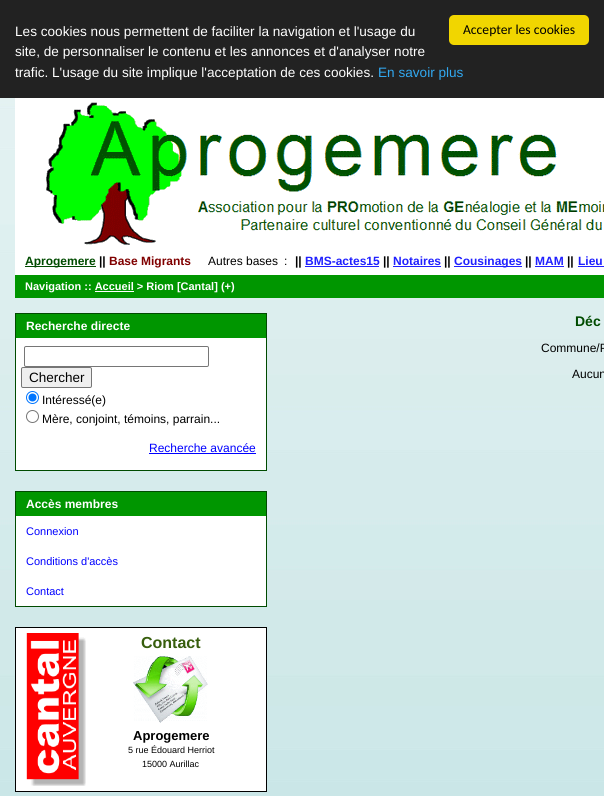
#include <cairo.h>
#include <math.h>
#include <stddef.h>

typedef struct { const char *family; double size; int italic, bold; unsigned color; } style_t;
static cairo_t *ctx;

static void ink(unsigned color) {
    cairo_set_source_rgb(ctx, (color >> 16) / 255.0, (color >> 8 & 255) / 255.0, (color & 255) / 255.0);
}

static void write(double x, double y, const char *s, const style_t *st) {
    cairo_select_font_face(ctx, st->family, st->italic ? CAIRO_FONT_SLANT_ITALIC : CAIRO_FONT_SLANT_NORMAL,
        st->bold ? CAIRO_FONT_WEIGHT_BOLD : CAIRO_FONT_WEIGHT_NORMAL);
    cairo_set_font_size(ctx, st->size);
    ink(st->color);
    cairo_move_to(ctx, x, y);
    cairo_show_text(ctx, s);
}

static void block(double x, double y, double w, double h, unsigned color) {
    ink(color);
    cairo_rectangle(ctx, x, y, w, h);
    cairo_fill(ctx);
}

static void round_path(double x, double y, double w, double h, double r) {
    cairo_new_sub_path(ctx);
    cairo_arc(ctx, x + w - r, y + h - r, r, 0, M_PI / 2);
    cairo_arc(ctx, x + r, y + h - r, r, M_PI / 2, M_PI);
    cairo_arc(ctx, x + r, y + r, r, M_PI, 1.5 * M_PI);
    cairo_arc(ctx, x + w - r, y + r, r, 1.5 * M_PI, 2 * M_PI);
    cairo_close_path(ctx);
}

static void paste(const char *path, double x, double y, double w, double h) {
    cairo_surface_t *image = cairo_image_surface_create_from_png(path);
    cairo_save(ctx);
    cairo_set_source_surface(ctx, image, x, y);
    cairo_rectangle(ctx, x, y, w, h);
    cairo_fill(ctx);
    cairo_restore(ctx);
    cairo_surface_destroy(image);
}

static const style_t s1 = {"Liberation Sans", 13.6, 0, 0, 0xffffff};
static const style_t s2 = {"Liberation Sans", 13.6, 0, 0, 0x31a8f0};
static const style_t s3 = {"Carlito", 13.6, 0, 0, 0x000000};
static const style_t s4 = {"Liberation Sans", 12, 0, 1, 0x004b00};
static const style_t s5 = {"Liberation Sans", 12, 0, 1, 0x000000};
static const style_t s6 = {"Liberation Sans", 12, 0, 1, 0x800000};
static const style_t s7 = {"Liberation Sans", 12, 0, 0, 0x000000};
static const style_t s8 = {"Liberation Sans", 12, 0, 1, 0x2020ff};
static const style_t s9 = {"Liberation Sans", 11, 0, 1, 0xffffff};
static const style_t s10 = {"Liberation Sans", 12, 0, 1, 0xffffff};
static const style_t s11 = {"Liberation Sans", 13.5, 0, 0, 0x000000};
static const style_t s12 = {"Liberation Sans", 12, 0, 0, 0x0000ff};
static const style_t s13 = {"Liberation Sans", 11, 0, 0, 0x0000ff};
static const style_t s14 = {"Liberation Sans", 16, 0, 1, 0x375e0d};
static const style_t s15 = {"Liberation Sans", 13, 0, 1, 0x000000};
static const style_t s16 = {"Liberation Sans", 9, 0, 0, 0x000000};
static const style_t s17 = {"Liberation Sans", 14, 0, 1, 0x004b00};

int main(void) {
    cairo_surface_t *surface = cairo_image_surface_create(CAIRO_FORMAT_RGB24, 604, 796);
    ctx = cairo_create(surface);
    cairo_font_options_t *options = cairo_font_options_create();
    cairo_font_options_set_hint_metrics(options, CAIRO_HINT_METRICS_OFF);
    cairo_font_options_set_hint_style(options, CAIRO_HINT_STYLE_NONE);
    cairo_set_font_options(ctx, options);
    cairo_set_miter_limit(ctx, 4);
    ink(0xffffff);
    cairo_paint(ctx);
    paste("pic1.png", 0, 98, 604, 698);
    block(0, 0, 604, 98, 0x222222);
    write(15, 36, "Les cookies nous permettent de faciliter la navigation et l'usage du", &s1);
    write(15, 56, "site, de personnaliser le contenu et les annonces et d'analyser notre", &s1);
    write(15, 77, "trafic. L'usage du site implique l'acceptation de ces cookies.", &s1);
    write(378, 77, "En savoir plus", &s2);
    ink(0xf1d600);
    round_path(449, 15, 140, 30, 5);
    cairo_fill(ctx);
    write(463, 34, "Accepter les cookies", &s3);
    block(15, 98, 589, 177, 0xffffff);
    paste("pic2.png", 46, 102, 558, 143);
    block(25, 266, 71, 1, 0x004b00);
    write(25, 265, "Aprogemere", &s4);
    write(99, 265, "||", &s5);
    write(109, 265, "Base Migrants", &s6);
    write(208, 265, "Autres bases", &s7);
    write(284, 265, ":", &s7);
    write(295, 265, "||", &s5);
    write(305, 265, "BMS-actes15", &s8);
    block(305, 266, 74, 1, 0x2020ff);
    write(383, 265, "||", &s5);
    write(393, 265, "Notaires", &s8);
    block(393, 266, 48, 1, 0x2020ff);
    write(444, 265, "||", &s5);
    block(454, 266, 68, 1, 0x2020ff);
    write(454, 265, "Cousinages", &s8);
    write(525, 265, "||", &s5);
    block(535, 266, 29, 1, 0x2020ff);
    write(535, 265, "MAM", &s8);
    write(567, 265, "||", &s5);
    write(578, 265, "Lieu", &s8);
    block(578, 266, 26, 1, 0x2020ff);
    block(15, 275, 589, 23, 0x009600);
    write(25, 290, "Navigation :: Accueil > Riom [Cantal] (+)", &s9);
    block(95, 291, 39, 1, 0xffffff);
    block(16, 338, 250, 132, 0xffffff);
    cairo_rectangle(ctx, 15.5, 313.5, 251, 157);
    ink(0x004b00);
    cairo_set_line_width(ctx, 1);
    cairo_stroke(ctx);
    block(16, 314, 250, 24, 0x009600);
    write(26, 330, "Recherche directe", &s10);
    round_path(24.5, 346.5, 184, 20, 1.5);
    ink(0x767676);
    cairo_stroke(ctx);
    ink(0xefefef);
    round_path(21.5, 367.5, 70, 20, 1.5);
    cairo_fill_preserve(ctx);
    ink(0x767676);
    cairo_stroke(ctx);
    write(29, 382, "Chercher", &s11);
    cairo_new_path(ctx);
    cairo_arc(ctx, 32.5, 397.5, 6, 0, 2 * M_PI);
    ink(0x0075ff);
    cairo_stroke(ctx);
    cairo_arc(ctx, 32.5, 397.5, 4, 0, 2 * M_PI);
    cairo_fill(ctx);
    write(42, 404, "Intéressé(e)", &s7);
    cairo_new_path(ctx);
    cairo_arc(ctx, 32.5, 416.5, 6, 0, 2 * M_PI);
    ink(0x767676);
    cairo_stroke(ctx);
    write(42, 423, "Mère, conjoint, témoins, parrain...", &s7);
    write(149, 452, "Recherche avancée", &s12);
    block(149, 453, 107, 1, 0x0000ff);
    block(16, 516, 250, 90, 0xffffff);
    cairo_rectangle(ctx, 15.5, 491.5, 251, 115);
    ink(0x004b00);
    cairo_stroke(ctx);
    block(16, 492, 250, 24, 0x009600);
    write(26, 508, "Accès membres", &s10);
    write(26, 535, "Connexion", &s13);
    write(26, 565, "Conditions d'accès", &s13);
    write(26, 595, "Contact", &s13);
    ink(0xffffff);
    cairo_rectangle(ctx, 15.5, 627.5, 251, 164);
    cairo_fill_preserve(ctx);
    ink(0x000000);
    cairo_stroke(ctx);
    paste("pic3.png", 26, 633, 60, 153);
    write(141, 648, "Contact", &s14);
    paste("pic4.png", 133, 656, 75, 67);
    write(133, 740, "Aprogemere", &s15);
    write(128, 753, "5 rue Édouard Herriot", &s16);
    write(142, 767, "15000 Aurillac", &s16);
    write(575, 326, "Déc", &s17);
    write(541, 352, "Commune/P", &s7);
    write(572, 378, "Aucun", &s7);
    cairo_surface_write_to_png(surface, "screenshot.png");
    cairo_font_options_destroy(options);
    cairo_destroy(ctx);
    cairo_surface_destroy(surface);
    return 0;
}
